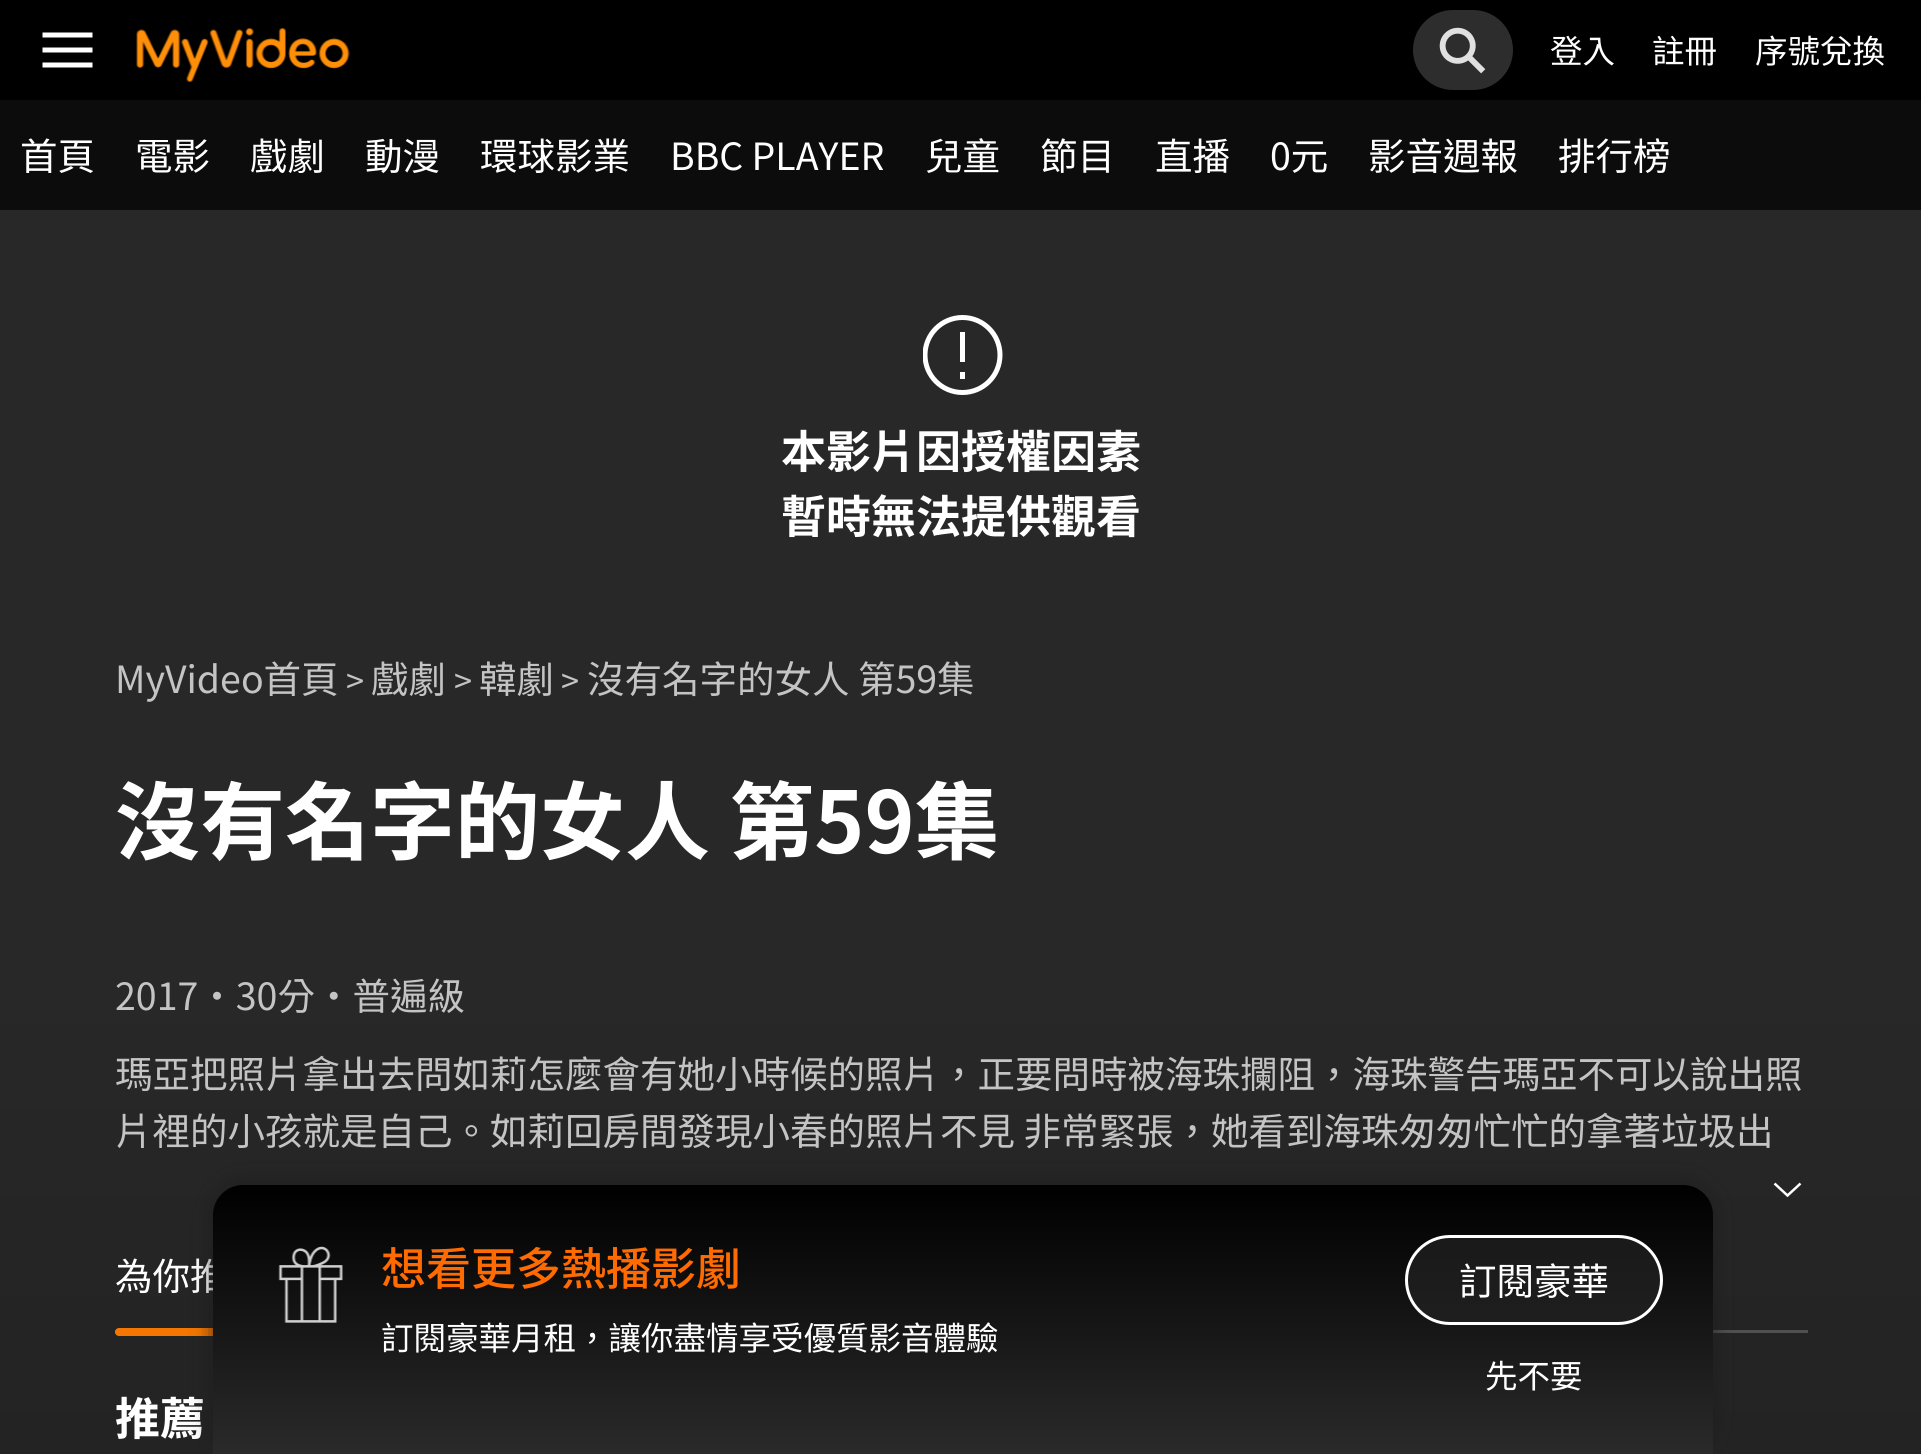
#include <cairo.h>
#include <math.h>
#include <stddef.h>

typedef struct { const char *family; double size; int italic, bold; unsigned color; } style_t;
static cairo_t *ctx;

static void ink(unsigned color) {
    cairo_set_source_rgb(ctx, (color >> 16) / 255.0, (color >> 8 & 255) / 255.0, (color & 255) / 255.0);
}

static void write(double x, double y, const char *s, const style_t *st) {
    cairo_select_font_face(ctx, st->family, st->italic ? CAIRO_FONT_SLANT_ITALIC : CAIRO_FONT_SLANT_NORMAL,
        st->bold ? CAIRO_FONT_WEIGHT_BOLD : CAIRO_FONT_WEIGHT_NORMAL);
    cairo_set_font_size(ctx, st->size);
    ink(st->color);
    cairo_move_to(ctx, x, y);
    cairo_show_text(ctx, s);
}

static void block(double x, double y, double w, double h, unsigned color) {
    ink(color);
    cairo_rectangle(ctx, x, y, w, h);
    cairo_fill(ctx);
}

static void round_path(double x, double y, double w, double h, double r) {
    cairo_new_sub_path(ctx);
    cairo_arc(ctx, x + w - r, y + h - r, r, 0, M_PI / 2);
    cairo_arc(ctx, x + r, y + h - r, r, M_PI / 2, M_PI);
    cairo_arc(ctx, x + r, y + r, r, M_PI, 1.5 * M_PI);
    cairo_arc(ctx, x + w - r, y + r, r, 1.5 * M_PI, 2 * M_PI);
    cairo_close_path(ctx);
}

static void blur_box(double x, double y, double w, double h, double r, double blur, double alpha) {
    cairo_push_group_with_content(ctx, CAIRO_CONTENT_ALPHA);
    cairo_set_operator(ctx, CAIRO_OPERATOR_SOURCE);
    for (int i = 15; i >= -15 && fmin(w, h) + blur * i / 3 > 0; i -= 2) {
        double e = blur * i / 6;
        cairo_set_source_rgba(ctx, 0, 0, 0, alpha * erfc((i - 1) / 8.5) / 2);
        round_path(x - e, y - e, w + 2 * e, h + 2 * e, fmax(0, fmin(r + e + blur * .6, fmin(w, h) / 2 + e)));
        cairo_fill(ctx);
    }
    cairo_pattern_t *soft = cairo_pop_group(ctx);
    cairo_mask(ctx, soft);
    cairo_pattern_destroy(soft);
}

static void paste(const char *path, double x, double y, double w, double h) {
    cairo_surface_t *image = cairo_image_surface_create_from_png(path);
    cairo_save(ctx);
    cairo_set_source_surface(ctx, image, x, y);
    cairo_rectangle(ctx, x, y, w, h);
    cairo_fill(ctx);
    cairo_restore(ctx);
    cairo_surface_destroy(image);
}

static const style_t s1 = {"Noto Sans TC", 32.5, 0, 0, 0xffffff};
static const style_t s2 = {"Noto Sans TC", 37.5, 0, 0, 0xffffff};
static const style_t s3 = {"Noto Sans TC", 45, 0, 1, 0xffffff};
static const style_t s4 = {"Noto Sans TC", 37.5, 0, 0, 0xc4c4c4};
static const style_t s5 = {"Noto Sans TC", 32.5, 0, 0, 0xc4c4c4};
static const style_t s6 = {"Noto Sans TC", 85, 0, 1, 0xffffff};
static const style_t s7 = {"Noto Sans TC Medium", 45, 0, 0, 0xff6b00};

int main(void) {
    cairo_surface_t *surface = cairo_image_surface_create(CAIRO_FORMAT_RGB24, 1921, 1454);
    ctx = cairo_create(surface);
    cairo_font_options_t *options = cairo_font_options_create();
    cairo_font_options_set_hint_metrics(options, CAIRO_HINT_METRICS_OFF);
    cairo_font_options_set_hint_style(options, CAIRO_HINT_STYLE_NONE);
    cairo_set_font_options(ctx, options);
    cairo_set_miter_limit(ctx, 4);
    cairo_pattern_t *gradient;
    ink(0xffffff);
    cairo_paint(ctx);
    block(0, 0, 1921, 100, 0x000000);
    paste("pic1.png", 42, 32, 51, 36);
    paste("pic2.png", 136, 28, 214, 54);
    ink(0x2d2d2d);
    round_path(1413, 10, 100, 80, 40);
    cairo_fill(ctx);
    paste("pic3.png", 1439, 27, 47, 47);
    write(1550, 63, "登入", &s1);
    write(1652, 63, "註冊", &s1);
    write(1755, 63, "序號兌換", &s1);
    block(0, 100, 1921, 110, 0x0c0c0c);
    write(20, 170, "首頁", &s2);
    write(135, 170, "電影", &s2);
    write(250, 170, "戲劇", &s2);
    write(365, 170, "動漫", &s2);
    write(480, 170, "環球影業", &s2);
    write(670, 170, "BBC PLAYER", &s2);
    write(925, 170, "兒童", &s2);
    write(1040, 170, "節目", &s2);
    write(1155, 170, "直播", &s2);
    write(1270, 170, "0元", &s2);
    write(1368, 170, "影音週報", &s2);
    write(1558, 170, "排行榜", &s2);
    gradient = cairo_pattern_create_linear(961, 210, 961, 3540);
    cairo_pattern_add_color_stop_rgba(gradient, 0.23, 0.157, 0.157, 0.157, 1);
    cairo_pattern_add_color_stop_rgba(gradient, 0.31, 0.145, 0.145, 0.145, 1);
    cairo_pattern_add_color_stop_rgba(gradient, 0.38, 0.137, 0.137, 0.137, 1);
    cairo_pattern_add_color_stop_rgba(gradient, 0.57, 0.129, 0.129, 0.129, 1);
    cairo_set_source(ctx, gradient);
    cairo_pattern_destroy(gradient);
    cairo_rectangle(ctx, 0, 210, 1921, 1244);
    cairo_fill(ctx);
    cairo_save(ctx);
    cairo_rectangle(ctx, 923, 315, 80, 80);
    cairo_clip(ctx);
    cairo_arc(ctx, 962.5, 355, 37.5, 0, 2 * M_PI);
    ink(0xffffff);
    cairo_set_line_width(ctx, 5);
    cairo_stroke(ctx);
    cairo_restore(ctx);
    block(960, 332, 5, 30, 0xffffff);
    block(960, 372, 5, 7, 0xffffff);
    write(781, 468, "本影片因授權因素", &s3);
    write(781, 533, "暫時無法提供觀看", &s3);
    write(115, 693, "MyVideo首頁", &s4);
    write(346, 693, ">", &s5);
    write(371, 693, "戲劇", &s4);
    write(454, 693, ">", &s5);
    write(479, 693, "韓劇", &s4);
    write(561, 693, ">", &s5);
    write(587, 693, "沒有名字的女人 第59集", &s4);
    write(115, 853, "沒有名字的女人 第59集", &s6);
    write(115, 1010, "2017・30分・普遍級", &s4);
    write(115, 1088, "瑪亞把照片拿出去問如莉怎麼會有她小時候的照片，正要問時被海珠攔阻，海珠警告瑪亞不可以說出照", &s4);
    write(115, 1145, "片裡的小孩就是自己。如莉回房間發現小春的照片不見 非常緊張，她看到海珠匆匆忙忙的拿著垃圾出", &s4);
    cairo_new_path(ctx);
    cairo_move_to(ctx, 1800.5, 1183.5);
    cairo_line_to(ctx, 1787.5, 1195.5);
    cairo_line_to(ctx, 1774.5, 1183.5);
    ink(0xffffff);
    cairo_set_line_width(ctx, 2.5);
    cairo_stroke(ctx);
    block(115, 1330, 1693, 3, 0x505050);
    write(115, 1290, "為你推", &s2);
    ink(0xf57600);
    round_path(115, 1328, 150, 8, 4);
    cairo_fill(ctx);
    write(115, 1435, "推薦", &s3);
    ink(0x1b1b1b);
    blur_box(213, 1183, 1500, 270, 30, 10, 0.8);
    gradient = cairo_pattern_create_linear(963, 1185, 963, 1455);
    cairo_pattern_add_color_stop_rgba(gradient, 0, 0, 0, 0, 1);
    cairo_pattern_add_color_stop_rgba(gradient, 1, 0.165, 0.165, 0.165, 1);
    cairo_set_source(ctx, gradient);
    cairo_pattern_destroy(gradient);
    cairo_new_path(ctx);
    cairo_move_to(ctx, 243, 1185);
    cairo_line_to(ctx, 1683, 1185);
    cairo_curve_to(ctx, 1699.5, 1185, 1713, 1198.5, 1713, 1215);
    cairo_line_to(ctx, 1713, 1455);
    cairo_line_to(ctx, 213, 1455);
    cairo_line_to(ctx, 213, 1215);
    cairo_curve_to(ctx, 213, 1198.5, 226.5, 1185, 243, 1185);
    cairo_close_path(ctx);
    cairo_fill(ctx);
    paste("pic4.png", 278, 1246, 65, 77);
    write(381, 1285, "想看更多熱播影劇", &s7);
    write(381, 1350, "訂閱豪華月租，讓你盡情享受優質影音體驗", &s1);
    cairo_set_source_rgba(ctx, 0.149, 0.149, 0.149, 0.6);
    round_path(1406.5, 1236.5, 255, 87, 43.5);
    cairo_fill_preserve(ctx);
    ink(0xffffff);
    cairo_set_line_width(ctx, 3);
    cairo_stroke(ctx);
    write(1459, 1295, "訂閱豪華", &s2);
    write(1485, 1388, "先不要", &s1);
    cairo_surface_write_to_png(surface, "screenshot.png");
    cairo_font_options_destroy(options);
    cairo_destroy(ctx);
    cairo_surface_destroy(surface);
    return 0;
}
